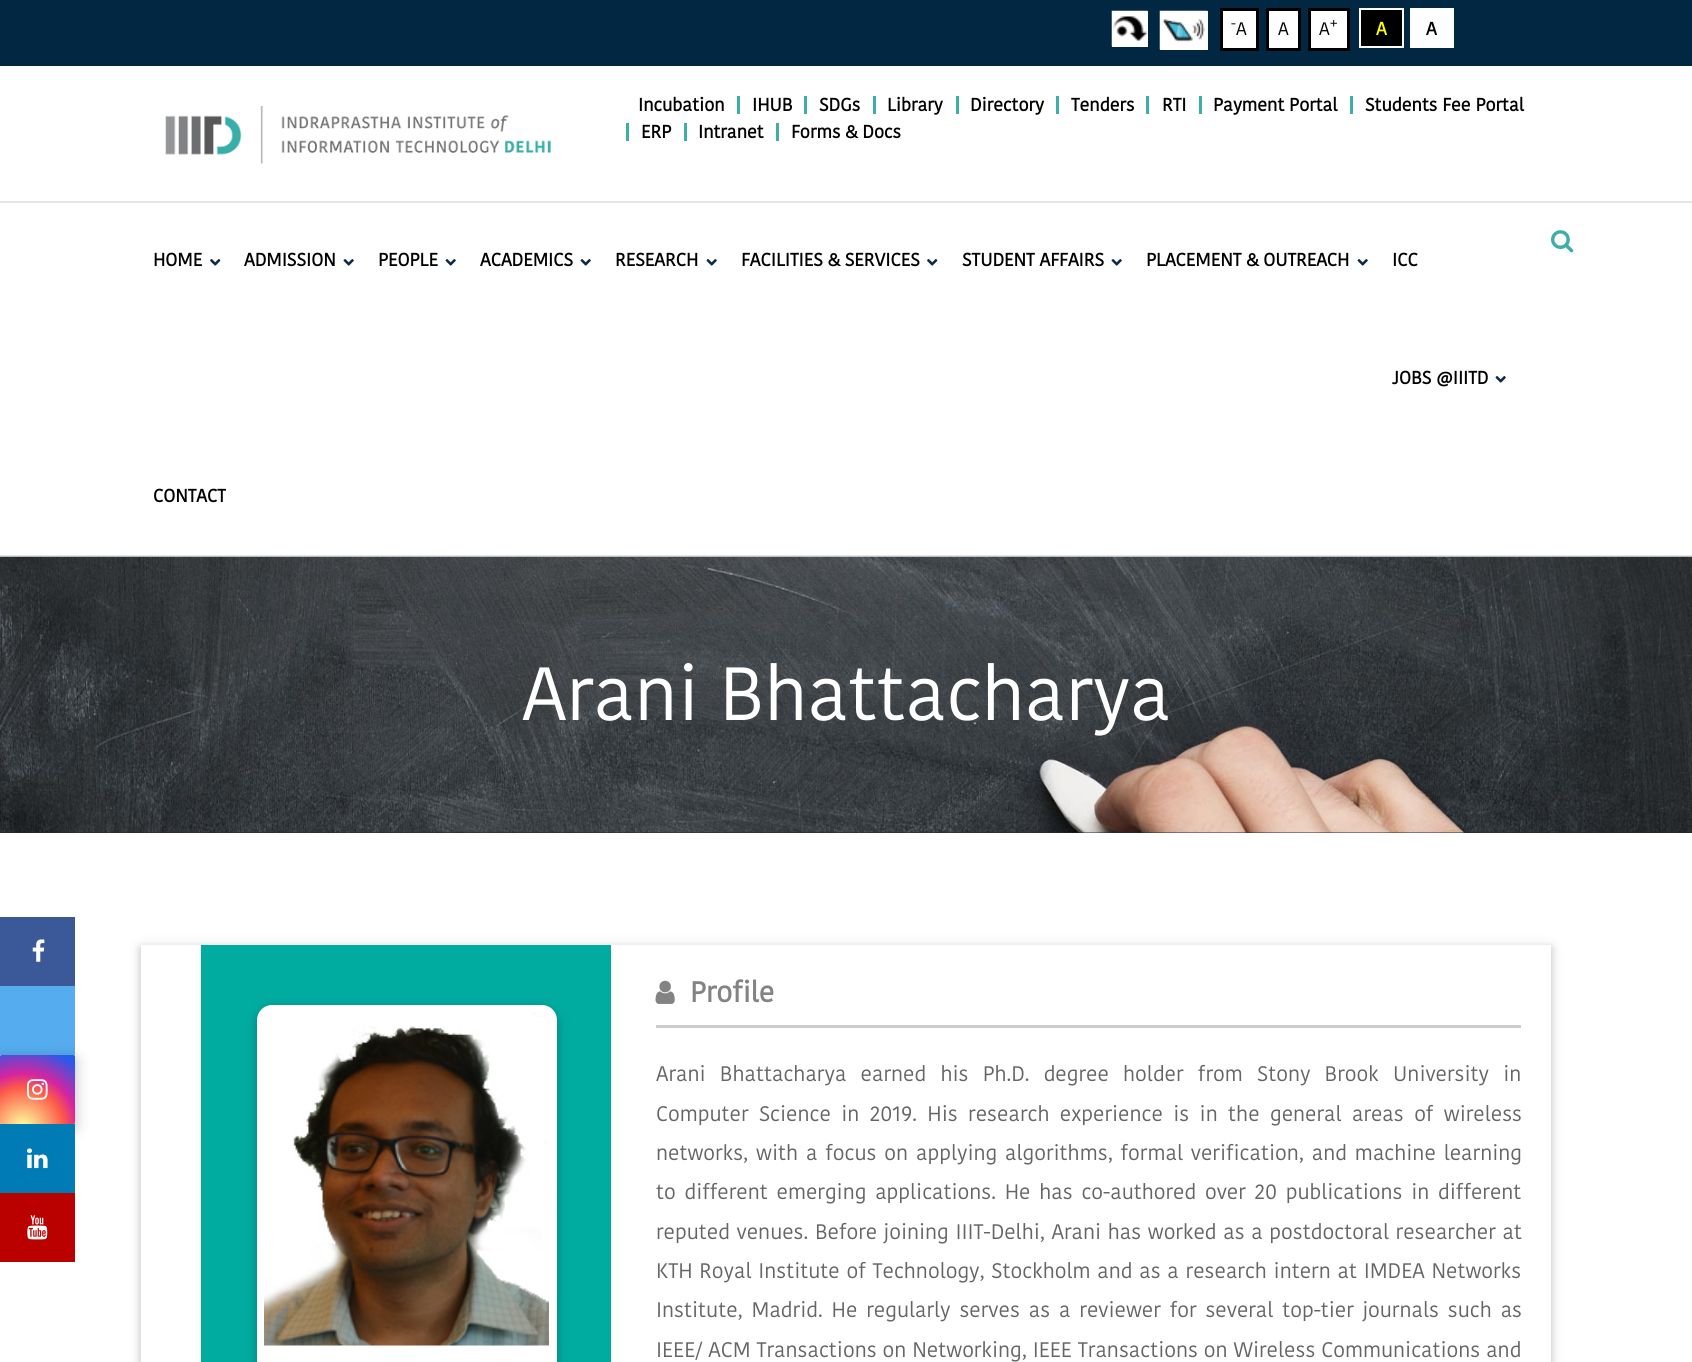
#include <cairo.h>
#include <math.h>
#include <stddef.h>

typedef struct { const char *family; double size; int italic, bold; unsigned color; } style_t;
static cairo_t *ctx;

static void ink(unsigned color) {
    cairo_set_source_rgb(ctx, (color >> 16) / 255.0, (color >> 8 & 255) / 255.0, (color & 255) / 255.0);
}

static void write(double x, double y, const char *s, const style_t *st) {
    cairo_select_font_face(ctx, st->family, st->italic ? CAIRO_FONT_SLANT_ITALIC : CAIRO_FONT_SLANT_NORMAL,
        st->bold ? CAIRO_FONT_WEIGHT_BOLD : CAIRO_FONT_WEIGHT_NORMAL);
    cairo_set_font_size(ctx, st->size);
    ink(st->color);
    cairo_move_to(ctx, x, y);
    cairo_show_text(ctx, s);
}

static void write_spaced(double x, double y, const char *s, double letter, double word) {
    cairo_move_to(ctx, x, y);
    while (*s) {
        char ch[5] = {0};
        int n = 0;
        do ch[n++] = *s++; while ((*s & 0xC0) == 0x80);
        cairo_show_text(ctx, ch);
        cairo_rel_move_to(ctx, letter + word * (*ch == ' '), 0);
    }
}

static void block(double x, double y, double w, double h, unsigned color) {
    ink(color);
    cairo_rectangle(ctx, x, y, w, h);
    cairo_fill(ctx);
}

static void round_path(double x, double y, double w, double h, double r) {
    cairo_new_sub_path(ctx);
    cairo_arc(ctx, x + w - r, y + h - r, r, 0, M_PI / 2);
    cairo_arc(ctx, x + r, y + h - r, r, M_PI / 2, M_PI);
    cairo_arc(ctx, x + r, y + r, r, M_PI, 1.5 * M_PI);
    cairo_arc(ctx, x + w - r, y + r, r, 1.5 * M_PI, 2 * M_PI);
    cairo_close_path(ctx);
}

static void blur_box(double x, double y, double w, double h, double r, double blur, double alpha) {
    cairo_push_group_with_content(ctx, CAIRO_CONTENT_ALPHA);
    cairo_set_operator(ctx, CAIRO_OPERATOR_SOURCE);
    for (int i = 15; i >= -15 && fmin(w, h) + blur * i / 3 > 0; i -= 2) {
        double e = blur * i / 6;
        cairo_set_source_rgba(ctx, 0, 0, 0, alpha * erfc((i - 1) / 8.5) / 2);
        round_path(x - e, y - e, w + 2 * e, h + 2 * e, fmax(0, fmin(r + e + blur * .6, fmin(w, h) / 2 + e)));
        cairo_fill(ctx);
    }
    cairo_pattern_t *soft = cairo_pop_group(ctx);
    cairo_mask(ctx, soft);
    cairo_pattern_destroy(soft);
}

static void paste(const char *path, double x, double y, double w, double h) {
    cairo_surface_t *image = cairo_image_surface_create_from_png(path);
    cairo_save(ctx);
    cairo_set_source_surface(ctx, image, x, y);
    cairo_rectangle(ctx, x, y, w, h);
    cairo_fill(ctx);
    cairo_restore(ctx);
    cairo_surface_destroy(image);
}

static const style_t s1 = {"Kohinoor", 18, 0, 0, 0x000000};
static const style_t s2 = {"Kohinoor", 14, 0, 0, 0x000000};
static const style_t s3 = {"Kohinoor", 18, 0, 1, 0xffff00};
static const style_t s4 = {"Kohinoor", 18, 0, 1, 0x000000};
static const style_t s5 = {"Kohinoor", 75, 0, 0, 0xffffff};
static const style_t s6 = {"Kohinoor", 28.5, 0, 1, 0x838383};

int main(void) {
    cairo_surface_t *surface = cairo_image_surface_create(CAIRO_FORMAT_RGB24, 1692, 1362);
    ctx = cairo_create(surface);
    cairo_font_options_t *options = cairo_font_options_create();
    cairo_font_options_set_hint_metrics(options, CAIRO_HINT_METRICS_OFF);
    cairo_font_options_set_hint_style(options, CAIRO_HINT_STYLE_NONE);
    cairo_set_font_options(ctx, options);
    cairo_set_miter_limit(ctx, 4);
    cairo_pattern_t *gradient;
    ink(0xffffff);
    cairo_paint(ctx);
    block(0, 0, 1692, 66, 0x022742);
    block(1112, 11, 36, 36, 0xffffff);
    paste("pic1.png", 1111, 10, 37, 37);
    block(1160, 11, 48, 39, 0xffffff);
    paste("pic2.png", 1159, 10, 49, 40);
    cairo_rectangle(ctx, 1221.5, 9.5, 36, 40);
    cairo_fill_preserve(ctx);
    ink(0x000000);
    cairo_set_line_width(ctx, 3);
    cairo_stroke(ctx);
    write(1236, 35, "A", &s1);
    write(1231, 28, "-", &s2);
    ink(0xffffff);
    cairo_rectangle(ctx, 1267.5, 9.5, 32, 40);
    cairo_fill_preserve(ctx);
    ink(0x000000);
    cairo_stroke(ctx);
    write(1278, 35, "A", &s1);
    ink(0xffffff);
    cairo_rectangle(ctx, 1309.5, 9.5, 39, 40);
    cairo_fill_preserve(ctx);
    ink(0x000000);
    cairo_stroke(ctx);
    write(1319, 35, "A", &s1);
    write(1330, 28, "+", &s2);
    cairo_rectangle(ctx, 1360, 9, 43, 38);
    cairo_fill_preserve(ctx);
    ink(0xffffff);
    cairo_set_line_width(ctx, 2);
    cairo_stroke(ctx);
    write(1376, 35, "A", &s3);
    block(1410, 8, 44, 40, 0xffffff);
    write(1426, 35, "A", &s4);
    block(0, 832, 1692, 1, 0x272b31);
    paste("pic11.png", 0, 556, 1692, 277);
    cairo_set_source_rgba(ctx, 0, 0, 0, 0.1);
    cairo_rectangle(ctx, 0, 555, 1692, 2);
    cairo_fill(ctx);
    block(0, 201, 1692, 2, 0xe6e6e6);
    paste("pic3.png", 165, 106, 386, 58);
    write(638, 111, "Incubation", &s4);
    block(737, 96, 3, 18, 0x3fada8);
    write(752, 111, "IHUB", &s4);
    block(804, 96, 3, 18, 0x3fada8);
    write(819, 111, "SDGs", &s4);
    block(873, 96, 3, 18, 0x3fada8);
    write(887, 111, "Library", &s4);
    block(956, 96, 3, 18, 0x3fada8);
    write(970, 111, "Directory", &s4);
    block(1056, 96, 3, 18, 0x3fada8);
    write(1071, 111, "Tenders", &s4);
    block(1146, 96, 3, 18, 0x3fada8);
    write(1162, 111, "RTI", &s4);
    block(1199, 96, 3, 18, 0x3fada8);
    write(1213, 111, "Payment Portal", &s4);
    block(1350, 96, 3, 18, 0x3fada8);
    write(1365, 111, "Students Fee Portal", &s4);
    block(626, 123, 3, 18, 0x3fada8);
    write(641, 138, "ERP", &s4);
    block(684, 123, 3, 18, 0x3fada8);
    write(698, 138, "Intranet", &s4);
    block(776, 123, 3, 18, 0x3fada8);
    write(791, 138, "Forms & Docs", &s4);
    paste("pic4.png", 1551, 230, 23, 23);
    write(153, 266, "HOME", &s4);
    paste("pic5.png", 210, 259, 11, 7);
    write(244, 266, "ADMISSION", &s4);
    paste("pic6.png", 343, 259, 11, 7);
    write(378, 266, "PEOPLE", &s4);
    paste("pic6.png", 445, 259, 11, 7);
    write(480, 266, "ACADEMICS", &s4);
    paste("pic6.png", 580, 259, 11, 7);
    write(615, 266, "RESEARCH", &s4);
    paste("pic6.png", 706, 259, 11, 7);
    write(741, 266, "FACILITIES & SERVICES", &s4);
    paste("pic5.png", 927, 259, 11, 7);
    write(962, 266, "STUDENT AFFAIRS", &s4);
    paste("pic6.png", 1111, 259, 11, 7);
    write(1146, 266, "PLACEMENT & OUTREACH", &s4);
    paste("pic6.png", 1357, 259, 11, 7);
    write(1392, 266, "ICC", &s4);
    write(1392, 384, "JOBS @IIITD", &s4);
    paste("pic6.png", 1495, 376, 11, 7);
    write(153, 502, "CONTACT", &s4);
    block(0, 917, 75, 69, 0x3b5998);
    paste("pic7.png", 32, 939, 13, 23);
    block(0, 986, 75, 69, 0x55acee);
    ink(0x000000);
    blur_box(0, 1059, 75, 69, 1.5, 7.5, 0.25);
    gradient = cairo_pattern_create_radial(23, 1128, 0, 23, 1128, 91);
    cairo_pattern_add_color_stop_rgba(gradient, 0, 0.992, 0.957, 0.592, 1);
    cairo_pattern_add_color_stop_rgba(gradient, 0.05, 0.992, 0.957, 0.592, 1);
    cairo_pattern_add_color_stop_rgba(gradient, 0.45, 0.992, 0.349, 0.286, 1);
    cairo_pattern_add_color_stop_rgba(gradient, 0.6, 0.839, 0.141, 0.624, 1);
    cairo_pattern_add_color_stop_rgba(gradient, 0.9, 0.157, 0.353, 0.922, 1);
    cairo_set_source(ctx, gradient);
    cairo_pattern_destroy(gradient);
    round_path(0, 1055, 75, 69, 1.5);
    cairo_fill(ctx);
    paste("pic8.png", 27, 1079, 21, 21);
    block(0, 1124, 75, 69, 0x007bb5);
    paste("pic9.png", 27, 1148, 21, 21);
    block(0, 1193, 75, 69, 0xbb0000);
    paste("pic10.png", 27, 1215, 21, 25);
    write(522, 720, "Arani Bhattacharya", &s5);
    cairo_save(ctx);
    cairo_set_fill_rule(ctx, CAIRO_FILL_RULE_EVEN_ODD);
    cairo_new_path(ctx);
    cairo_move_to(ctx, 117, 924);
    cairo_line_to(ctx, 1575, 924);
    cairo_line_to(ctx, 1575, 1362);
    cairo_line_to(ctx, 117, 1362);
    cairo_close_path(ctx);
    cairo_move_to(ctx, 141, 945);
    cairo_line_to(ctx, 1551, 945);
    cairo_line_to(ctx, 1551, 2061);
    cairo_line_to(ctx, 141, 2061);
    cairo_close_path(ctx);
    cairo_clip(ctx);
    ink(0x000000);
    blur_box(141, 948, 1410, 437, 0, 7.5, 0.12);
    cairo_restore(ctx);
    cairo_save(ctx);
    cairo_set_fill_rule(ctx, CAIRO_FILL_RULE_EVEN_ODD);
    cairo_new_path(ctx);
    cairo_move_to(ctx, 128, 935);
    cairo_line_to(ctx, 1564, 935);
    cairo_line_to(ctx, 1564, 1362);
    cairo_line_to(ctx, 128, 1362);
    cairo_close_path(ctx);
    cairo_move_to(ctx, 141, 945);
    cairo_line_to(ctx, 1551, 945);
    cairo_line_to(ctx, 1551, 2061);
    cairo_line_to(ctx, 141, 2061);
    cairo_close_path(ctx);
    cairo_clip(ctx);
    ink(0x000000);
    blur_box(141, 948, 1410, 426, 0, 4, 0.16);
    cairo_restore(ctx);
    block(201, 945, 410, 417, 0x00ab9f);
    ink(0x000000);
    blur_box(257, 1008, 300, 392, 15, 7.5, 0.12);
    blur_box(257, 1008, 300, 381, 15, 4, 0.16);
    ink(0xffffff);
    round_path(257, 1005, 300, 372, 15);
    cairo_fill(ctx);
    paste("pic12.png", 264, 1012, 285, 334);
    block(656, 1025, 865, 3, 0xcccccc);
    paste("pic13.png", 655, 980, 20, 24);
    write(690, 1002, "Profile", &s6);
    cairo_select_font_face(ctx, "Kohinoor", CAIRO_FONT_SLANT_NORMAL, CAIRO_FONT_WEIGHT_NORMAL);
    cairo_set_font_size(ctx, 21);
    ink(0x656565);
    write_spaced(656, 1081, "Arani Bhattacharya earned his Ph.D. degree holder from Stony Brook University in", 0, 8.6);
    write_spaced(656, 1121, "Computer Science in 2019. His research experience is in the general areas of wireless", 0, 4.75);
    write_spaced(656, 1160, "networks, with a focus on applying algorithms, formal verification, and machine learning", 0, 2.25);
    write_spaced(656, 1199, "to different emerging applications. He has co-authored over 20 publications in different", 0, 3.1);
    write_spaced(656, 1239, "reputed venues. Before joining IIIT-Delhi, Arani has worked as a postdoctoral researcher at", 0, 1);
    write_spaced(656, 1278, "KTH Royal Institute of Technology, Stockholm and as a research intern at IMDEA Networks", 0, 1.1);
    write_spaced(656, 1317, "Institute, Madrid. He regularly serves as a reviewer for several top-tier journals such as", 0, 3.25);
    write_spaced(656, 1357, "IEEE/ ACM Transactions on Networking, IEEE Transactions on Wireless Communications and", 0, 0.25);
    cairo_surface_write_to_png(surface, "screenshot.png");
    cairo_font_options_destroy(options);
    cairo_destroy(ctx);
    cairo_surface_destroy(surface);
    return 0;
}
